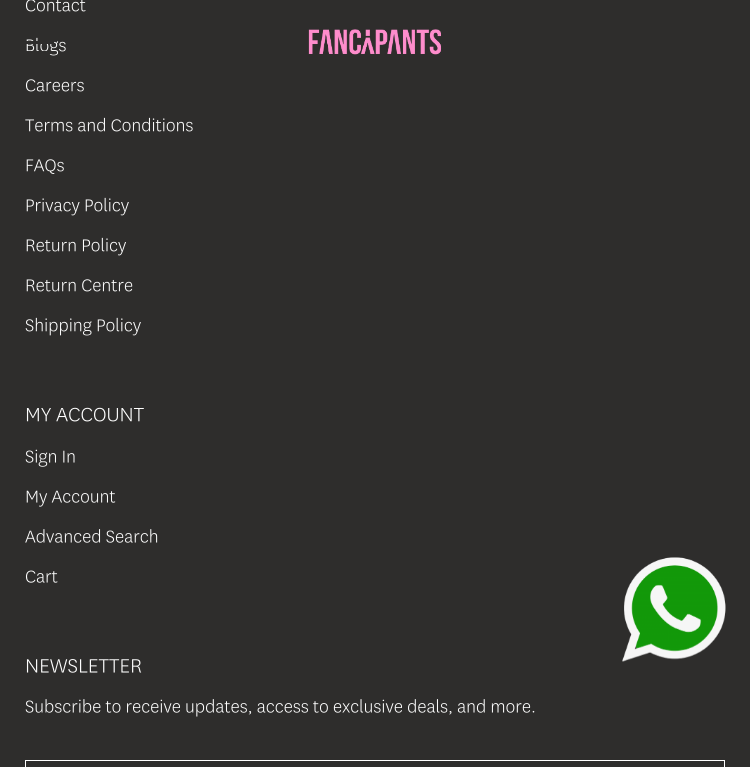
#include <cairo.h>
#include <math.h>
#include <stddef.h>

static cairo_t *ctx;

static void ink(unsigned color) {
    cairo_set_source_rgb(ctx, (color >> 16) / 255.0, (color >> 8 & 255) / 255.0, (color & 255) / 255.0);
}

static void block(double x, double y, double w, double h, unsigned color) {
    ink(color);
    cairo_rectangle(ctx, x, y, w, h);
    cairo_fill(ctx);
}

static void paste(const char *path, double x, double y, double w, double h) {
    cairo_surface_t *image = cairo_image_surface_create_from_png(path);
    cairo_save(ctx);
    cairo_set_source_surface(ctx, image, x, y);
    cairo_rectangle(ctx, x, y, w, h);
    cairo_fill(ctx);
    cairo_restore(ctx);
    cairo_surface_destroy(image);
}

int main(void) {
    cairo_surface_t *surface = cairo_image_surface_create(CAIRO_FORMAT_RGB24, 750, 767);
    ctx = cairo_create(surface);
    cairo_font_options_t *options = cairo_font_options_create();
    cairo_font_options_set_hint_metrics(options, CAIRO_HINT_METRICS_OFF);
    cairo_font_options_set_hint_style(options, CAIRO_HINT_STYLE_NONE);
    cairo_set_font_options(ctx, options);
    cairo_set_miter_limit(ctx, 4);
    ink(0x2e2d2c);
    cairo_paint(ctx);
    paste("pic1.png", 25, 0, 61, 12);
    paste("pic2.png", 26, 37, 40, 19);
    paste("pic3.png", 25, 79, 59, 13);
    paste("pic4.png", 25, 117, 168, 15);
    paste("pic5.png", 26, 159, 38, 15);
    paste("pic6.png", 26, 197, 103, 19);
    paste("pic7.png", 26, 237, 100, 19);
    paste("pic8.png", 26, 279, 107, 13);
    paste("pic9.png", 25, 317, 116, 19);
    paste("pic10.png", 26, 407, 118, 15);
    paste("pic11.png", 25, 449, 50, 18);
    paste("pic12.png", 26, 490, 90, 17);
    paste("pic13.png", 25, 529, 133, 14);
    paste("pic14.png", 25, 570, 33, 13);
    paste("pic15.png", 26, 659, 116, 14);
    paste("pic16.png", 25, 699, 510, 18);
    cairo_rectangle(ctx, 25.5, 760.5, 699, 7);
    ink(0xffffff);
    cairo_set_line_width(ctx, 1);
    cairo_stroke(ctx);
    block(25, 41, 29, 3, 0x2e2d2c);
    block(25, 51, 29, 3, 0x2e2d2c);
    paste("pic17.png", 308, 29, 134, 26);
    paste("pic18.png", 622, 557, 104, 105);
    cairo_surface_write_to_png(surface, "screenshot.png");
    cairo_font_options_destroy(options);
    cairo_destroy(ctx);
    cairo_surface_destroy(surface);
    return 0;
}
